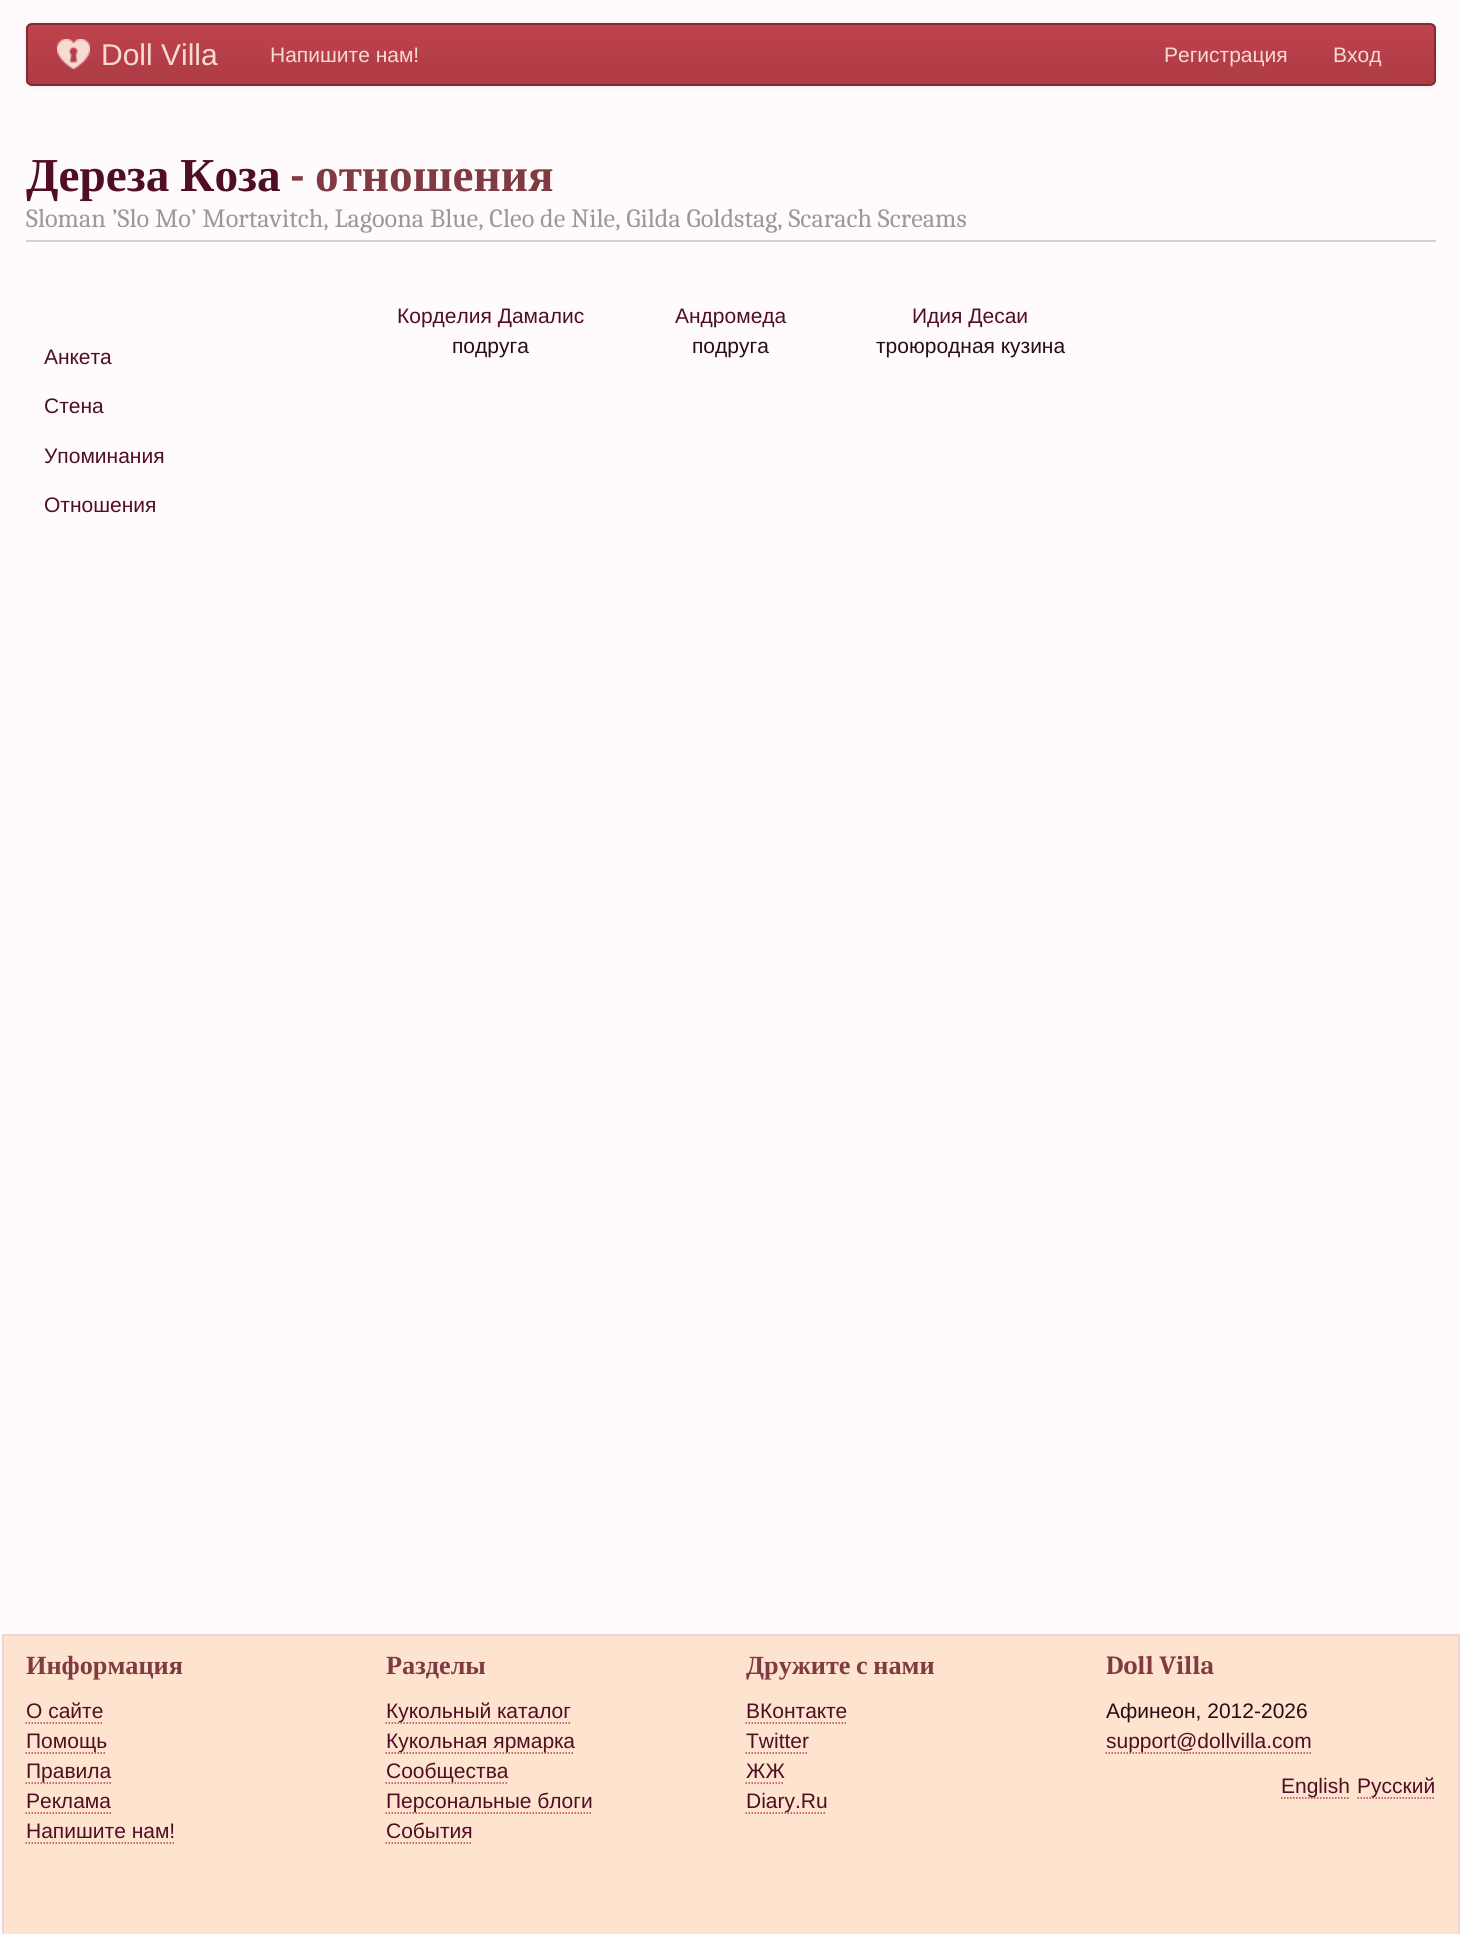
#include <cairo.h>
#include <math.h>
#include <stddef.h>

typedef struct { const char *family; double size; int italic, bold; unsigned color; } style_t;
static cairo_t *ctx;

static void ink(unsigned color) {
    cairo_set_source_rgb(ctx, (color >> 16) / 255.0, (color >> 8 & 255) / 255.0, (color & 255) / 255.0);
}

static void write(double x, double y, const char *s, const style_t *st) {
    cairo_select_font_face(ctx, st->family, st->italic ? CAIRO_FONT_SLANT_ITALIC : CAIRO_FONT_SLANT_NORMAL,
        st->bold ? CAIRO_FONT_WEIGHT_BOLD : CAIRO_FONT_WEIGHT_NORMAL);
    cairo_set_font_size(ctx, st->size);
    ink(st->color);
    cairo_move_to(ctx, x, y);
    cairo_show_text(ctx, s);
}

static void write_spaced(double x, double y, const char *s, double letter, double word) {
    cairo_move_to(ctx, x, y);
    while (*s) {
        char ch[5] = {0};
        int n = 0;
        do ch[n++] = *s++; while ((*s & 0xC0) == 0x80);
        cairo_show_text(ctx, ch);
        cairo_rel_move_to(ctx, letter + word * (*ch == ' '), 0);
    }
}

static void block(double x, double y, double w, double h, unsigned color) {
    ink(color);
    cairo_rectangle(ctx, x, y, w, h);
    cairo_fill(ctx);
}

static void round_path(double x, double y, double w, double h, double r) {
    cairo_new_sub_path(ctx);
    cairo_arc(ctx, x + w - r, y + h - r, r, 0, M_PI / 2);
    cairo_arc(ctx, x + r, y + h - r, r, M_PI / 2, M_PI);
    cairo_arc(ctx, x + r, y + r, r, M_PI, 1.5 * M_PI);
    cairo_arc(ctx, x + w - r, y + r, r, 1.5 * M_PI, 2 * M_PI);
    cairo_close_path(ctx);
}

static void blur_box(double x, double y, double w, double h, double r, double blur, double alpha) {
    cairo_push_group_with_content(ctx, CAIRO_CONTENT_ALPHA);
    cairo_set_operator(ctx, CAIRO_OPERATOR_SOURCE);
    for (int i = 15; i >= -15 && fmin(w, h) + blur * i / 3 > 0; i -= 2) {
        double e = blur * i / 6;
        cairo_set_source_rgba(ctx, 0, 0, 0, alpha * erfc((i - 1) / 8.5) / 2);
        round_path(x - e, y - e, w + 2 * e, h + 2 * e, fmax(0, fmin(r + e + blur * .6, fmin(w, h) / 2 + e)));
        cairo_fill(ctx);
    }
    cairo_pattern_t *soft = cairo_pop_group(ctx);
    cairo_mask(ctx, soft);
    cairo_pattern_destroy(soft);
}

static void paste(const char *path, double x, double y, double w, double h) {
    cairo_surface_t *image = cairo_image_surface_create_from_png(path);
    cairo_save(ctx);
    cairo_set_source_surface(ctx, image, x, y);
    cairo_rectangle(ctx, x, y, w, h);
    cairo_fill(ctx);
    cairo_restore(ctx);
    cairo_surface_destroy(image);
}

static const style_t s1 = {"Liberation Sans", 30, 0, 0, 0xf6dbd3};
static const style_t s2 = {"Liberation Sans", 21, 0, 0, 0xf6dbd3};
static const style_t s3 = {"Caladea", 47.25, 0, 1, 0x7f3b41};
static const style_t s4 = {"Liberation Serif", 47.25, 0, 1, 0x7f3b41};
static const style_t s5 = {"Caladea", 26.25, 0, 0, 0x999999};
static const style_t s6 = {"Liberation Sans", 21, 0, 0, 0x500e25};
static const style_t s7 = {"Liberation Sans", 21, 0, 0, 0x260d16};
static const style_t s8 = {"Liberation Serif", 26.25, 0, 1, 0x7f3b41};
static const style_t s9 = {"Caladea", 26.25, 0, 1, 0x7f3b41};

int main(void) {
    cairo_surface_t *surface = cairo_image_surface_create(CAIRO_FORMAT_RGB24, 1460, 1934);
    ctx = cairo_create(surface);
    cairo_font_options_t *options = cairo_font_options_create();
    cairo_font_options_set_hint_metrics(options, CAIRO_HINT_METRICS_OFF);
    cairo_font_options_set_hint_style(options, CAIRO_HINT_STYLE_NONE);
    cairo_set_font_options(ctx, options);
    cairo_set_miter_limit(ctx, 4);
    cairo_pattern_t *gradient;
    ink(0xfffafb);
    cairo_paint(ctx);
    ink(0x000000);
    blur_box(26, 24, 1410, 63, 6, 3, 0.07);
    cairo_save(ctx);
    round_path(26, 23, 1410, 63, 6);
    cairo_clip(ctx);
    gradient = cairo_pattern_create_linear(731, 24, 731, 84);
    cairo_pattern_add_color_stop_rgba(gradient, 0, 0.749, 0.263, 0.302, 1);
    cairo_pattern_add_color_stop_rgba(gradient, 1, 0.678, 0.231, 0.267, 1);
    cairo_set_source(ctx, gradient);
    cairo_pattern_destroy(gradient);
    cairo_rectangle(ctx, 26, 24, 1410, 60);
    cairo_fill(ctx);
    cairo_restore(ctx);
    round_path(27, 24, 1408, 61, 5);
    ink(0x802c32);
    cairo_stroke(ctx);
    paste("pic1.png", 57, 39, 33, 30);
    write(101, 65, "Doll Villa", &s1);
    write(270, 62, "Напишите нам!", &s2);
    write(1164, 62, "Регистрация", &s2);
    write(1333, 62, "Вход", &s2);
    block(26, 240, 1410, 2, 0xddcccc);
    cairo_select_font_face(ctx, "Liberation Serif", CAIRO_FONT_SLANT_NORMAL, CAIRO_FONT_WEIGHT_BOLD);
    cairo_set_font_size(ctx, 47.25);
    ink(0x500e25);
    write_spaced(26, 191, "Дереза Коза", 0, -1);
    write(290, 191, "-", &s3);
    write(315, 191, "отношения", &s4);
    write(26, 227, "Sloman ’Slo Mo’ Mortavitch, Lagoona Blue, Cleo de Nile, Gilda Goldstag, Scarach Screams", &s5);
    write(397, 323, "Корделия Дамалис", &s6);
    write(452, 353, "подруга", &s7);
    write(675, 323, "Андромеда", &s6);
    write(692, 353, "подруга", &s7);
    write(912, 323, "Идия Десаи", &s6);
    write(876, 353, "троюродная кузина", &s7);
    write(44, 364, "Анкета", &s6);
    write(44, 413, "Стена", &s6);
    write(44, 463, "Упоминания", &s6);
    write(44, 512, "Отношения", &s6);
    block(4, 1636, 1454, 298, 0xfee4cf);
    cairo_new_path(ctx);
    cairo_move_to(ctx, 25.5, 1723);
    cairo_line_to(ctx, 103.5, 1723);
    ink(0xb8404a);
    cairo_set_line_width(ctx, 1.5);
    cairo_set_dash(ctx, (double[]){1.5, 1.5}, 2, 0);
    cairo_stroke(ctx);
    cairo_new_path(ctx);
    cairo_move_to(ctx, 25.5, 1753);
    cairo_line_to(ctx, 106.5, 1753);
    cairo_stroke(ctx);
    cairo_new_path(ctx);
    cairo_move_to(ctx, 25.5, 1783);
    cairo_line_to(ctx, 111, 1783);
    cairo_stroke(ctx);
    cairo_new_path(ctx);
    cairo_move_to(ctx, 25.5, 1813);
    cairo_line_to(ctx, 111, 1813);
    cairo_stroke(ctx);
    cairo_new_path(ctx);
    cairo_move_to(ctx, 25.5, 1843);
    cairo_line_to(ctx, 174, 1843);
    cairo_stroke(ctx);
    cairo_new_path(ctx);
    cairo_move_to(ctx, 385.5, 1723);
    cairo_line_to(ctx, 570, 1723);
    cairo_stroke(ctx);
    cairo_new_path(ctx);
    cairo_move_to(ctx, 385.5, 1753);
    cairo_line_to(ctx, 574.5, 1753);
    cairo_stroke(ctx);
    cairo_new_path(ctx);
    cairo_move_to(ctx, 385.5, 1783);
    cairo_line_to(ctx, 508.5, 1783);
    cairo_stroke(ctx);
    cairo_new_path(ctx);
    cairo_move_to(ctx, 385.5, 1813);
    cairo_line_to(ctx, 592.5, 1813);
    cairo_stroke(ctx);
    cairo_new_path(ctx);
    cairo_move_to(ctx, 385.5, 1843);
    cairo_line_to(ctx, 472.5, 1843);
    cairo_stroke(ctx);
    cairo_new_path(ctx);
    cairo_move_to(ctx, 745.5, 1723);
    cairo_line_to(ctx, 847.5, 1723);
    cairo_stroke(ctx);
    cairo_new_path(ctx);
    cairo_move_to(ctx, 745.5, 1753);
    cairo_line_to(ctx, 808.5, 1753);
    cairo_stroke(ctx);
    cairo_new_path(ctx);
    cairo_move_to(ctx, 745.5, 1783);
    cairo_line_to(ctx, 784.5, 1783);
    cairo_stroke(ctx);
    cairo_new_path(ctx);
    cairo_move_to(ctx, 745.5, 1813);
    cairo_line_to(ctx, 826.5, 1813);
    cairo_stroke(ctx);
    cairo_new_path(ctx);
    cairo_move_to(ctx, 1105.5, 1753);
    cairo_line_to(ctx, 1311, 1753);
    cairo_stroke(ctx);
    cairo_new_path(ctx);
    cairo_move_to(ctx, 1281, 1798);
    cairo_line_to(ctx, 1350, 1798);
    cairo_stroke(ctx);
    cairo_new_path(ctx);
    cairo_move_to(ctx, 1357.5, 1798);
    cairo_line_to(ctx, 1435.5, 1798);
    cairo_stroke(ctx);
    cairo_rectangle(ctx, 3, 1635, 1456, 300);
    ink(0xf0d4d9);
    cairo_set_line_width(ctx, 2);
    cairo_set_dash(ctx, NULL, 0, 0);
    cairo_stroke(ctx);
    write(26, 1674, "Информация", &s8);
    write(26, 1718, "О сайте", &s6);
    write(26, 1748, "Помощь", &s6);
    write(26, 1778, "Правила", &s6);
    write(26, 1808, "Реклама", &s6);
    write(26, 1838, "Напишите нам!", &s6);
    write(386, 1674, "Разделы", &s8);
    write(386, 1718, "Кукольный каталог", &s6);
    write(386, 1748, "Кукольная ярмарка", &s6);
    write(386, 1778, "Сообщества", &s6);
    write(386, 1808, "Персональные блоги", &s6);
    write(386, 1838, "События", &s6);
    cairo_select_font_face(ctx, "Liberation Serif", CAIRO_FONT_SLANT_NORMAL, CAIRO_FONT_WEIGHT_BOLD);
    cairo_set_font_size(ctx, 26.25);
    ink(0x7f3b41);
    write_spaced(746, 1674, "Дружите с нами", 0, -1);
    write(746, 1718, "ВКонтакте", &s6);
    write(746, 1748, "Twitter", &s6);
    write(746, 1778, "ЖЖ", &s6);
    write(746, 1808, "Diary.Ru", &s6);
    write(1106, 1674, "Doll Villa", &s9);
    write(1106, 1718, "Афинеон, 2012-2026", &s7);
    write(1106, 1748, "support@dollvilla.com", &s6);
    write(1281, 1793, "English", &s6);
    write(1357, 1793, "Русский", &s6);
    cairo_surface_write_to_png(surface, "screenshot.png");
    cairo_font_options_destroy(options);
    cairo_destroy(ctx);
    cairo_surface_destroy(surface);
    return 0;
}
